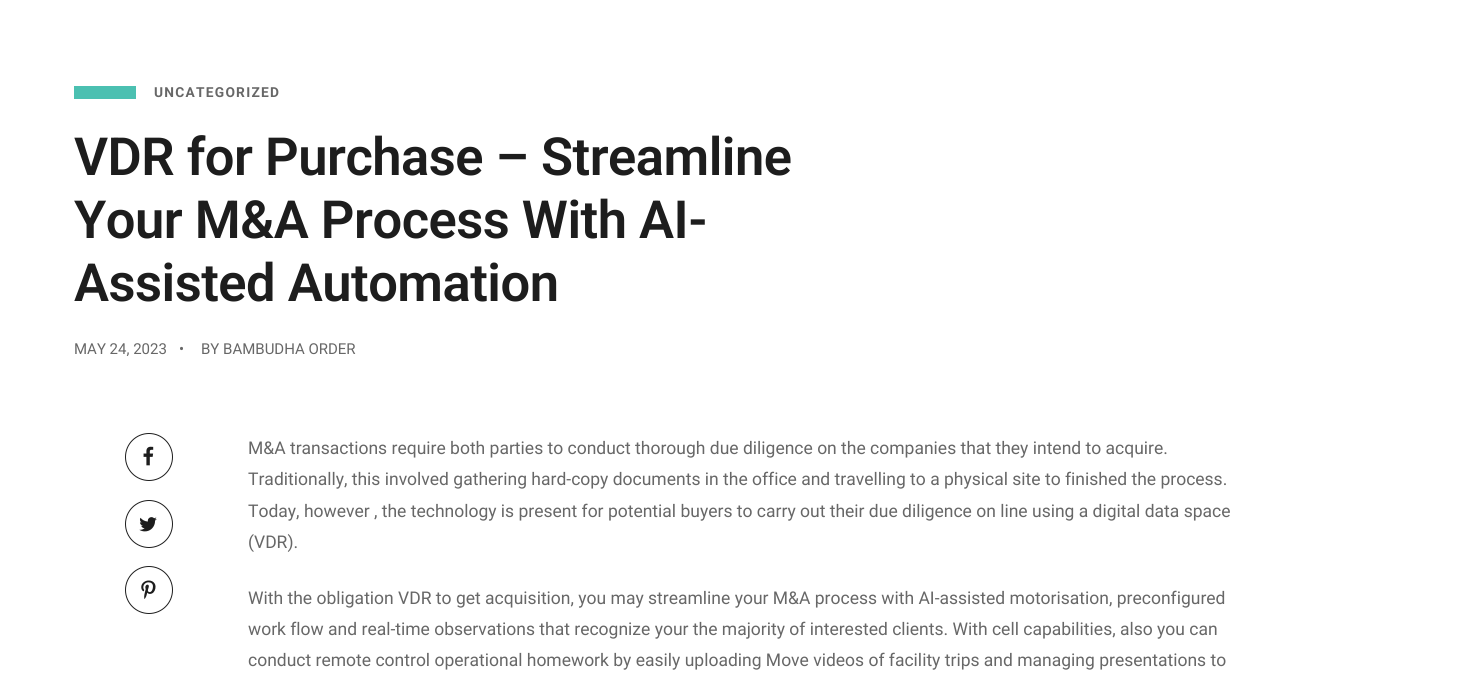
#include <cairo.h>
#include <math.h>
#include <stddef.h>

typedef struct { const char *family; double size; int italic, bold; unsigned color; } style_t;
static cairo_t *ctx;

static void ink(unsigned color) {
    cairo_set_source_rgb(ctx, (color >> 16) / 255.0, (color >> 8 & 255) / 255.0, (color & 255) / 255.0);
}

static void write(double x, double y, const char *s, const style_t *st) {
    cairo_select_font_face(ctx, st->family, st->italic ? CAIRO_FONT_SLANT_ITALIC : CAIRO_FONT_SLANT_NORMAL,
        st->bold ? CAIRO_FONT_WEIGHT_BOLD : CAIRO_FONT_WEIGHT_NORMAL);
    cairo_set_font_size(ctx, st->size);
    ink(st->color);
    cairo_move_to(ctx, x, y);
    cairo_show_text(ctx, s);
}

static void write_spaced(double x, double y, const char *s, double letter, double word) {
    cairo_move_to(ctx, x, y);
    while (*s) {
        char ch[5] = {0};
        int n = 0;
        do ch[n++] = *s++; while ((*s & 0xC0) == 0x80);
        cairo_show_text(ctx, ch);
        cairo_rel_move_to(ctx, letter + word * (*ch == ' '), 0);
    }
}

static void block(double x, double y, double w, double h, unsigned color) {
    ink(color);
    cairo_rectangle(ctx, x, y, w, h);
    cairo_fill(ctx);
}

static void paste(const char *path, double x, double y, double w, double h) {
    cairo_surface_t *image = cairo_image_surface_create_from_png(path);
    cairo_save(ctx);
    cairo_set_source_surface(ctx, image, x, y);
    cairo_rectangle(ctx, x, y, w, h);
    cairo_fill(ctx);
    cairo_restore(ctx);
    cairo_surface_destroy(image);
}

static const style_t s1 = {"Roboto", 15, 0, 0, 0x676767};
static const style_t s2 = {"Roboto", 17.5, 0, 0, 0x676767};

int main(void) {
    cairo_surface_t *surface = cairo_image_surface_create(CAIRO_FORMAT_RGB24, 1481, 687);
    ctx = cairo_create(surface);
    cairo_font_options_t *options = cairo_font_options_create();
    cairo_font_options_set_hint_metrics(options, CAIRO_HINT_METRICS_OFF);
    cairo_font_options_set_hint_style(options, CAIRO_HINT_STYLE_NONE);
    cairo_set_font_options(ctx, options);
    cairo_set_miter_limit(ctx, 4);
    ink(0xffffff);
    cairo_paint(ctx);
    block(74, 86, 62, 13, 0x4bc0b1);
    cairo_select_font_face(ctx, "Roboto", CAIRO_FONT_SLANT_NORMAL, CAIRO_FONT_WEIGHT_BOLD);
    cairo_set_font_size(ctx, 13.75);
    ink(0x676767);
    write_spaced(154, 97, "UNCATEGORIZED", 1.25, 0);
    cairo_select_font_face(ctx, "Roboto SemiBold", CAIRO_FONT_SLANT_NORMAL, CAIRO_FONT_WEIGHT_NORMAL);
    cairo_set_font_size(ctx, 52.5);
    ink(0x1d1d1d);
    write_spaced(74, 175, "VDR for Purchase – Streamline", -0.5, 0);
    write_spaced(74, 238, "Your M&A Process With AI-", -0.5, 0);
    write_spaced(74, 301, "Assisted Automation", -0.5, 0);
    write(74, 354, "MAY 24, 2023", &s1);
    write(179, 354, "•", &s1);
    write(201, 354, "BY BAMBUDHA ORDER", &s1);
    cairo_new_path(ctx);
    cairo_arc(ctx, 149, 457, 23.5, 0, 2 * M_PI);
    ink(0x1d1d1d);
    cairo_set_line_width(ctx, 1);
    cairo_stroke(ctx);
    paste("pic1.png", 143, 446, 11, 20);
    cairo_arc(ctx, 149, 524, 23.5, 0, 2 * M_PI);
    cairo_stroke(ctx);
    paste("pic2.png", 139, 517, 18, 15);
    cairo_arc(ctx, 149, 590, 23.5, 0, 2 * M_PI);
    cairo_stroke(ctx);
    paste("pic3.png", 141, 580, 15, 19);
    write(248, 454, "M&A transactions require both parties to conduct thorough due diligence on the companies that they intend to acquire.", &s2);
    write(248, 485, "Traditionally, this involved gathering hard-copy documents in the office and travelling to a physical site to finished the process.", &s2);
    write(248, 517, "Today, however , the technology is present for potential buyers to carry out their due diligence on line using a digital data space", &s2);
    write(248, 548, "(VDR).", &s2);
    write(248, 604, "With the obligation VDR to get acquisition, you may streamline your M&A process with AI-assisted motorisation, preconfigured", &s2);
    write(248, 635, "work flow and real-time observations that recognize your the majority of interested clients. With cell capabilities, also you can", &s2);
    write(248, 666, "conduct remote control operational homework by easily uploading Move videos of facility trips and managing presentations to", &s2);
    cairo_surface_write_to_png(surface, "screenshot.png");
    cairo_font_options_destroy(options);
    cairo_destroy(ctx);
    cairo_surface_destroy(surface);
    return 0;
}
